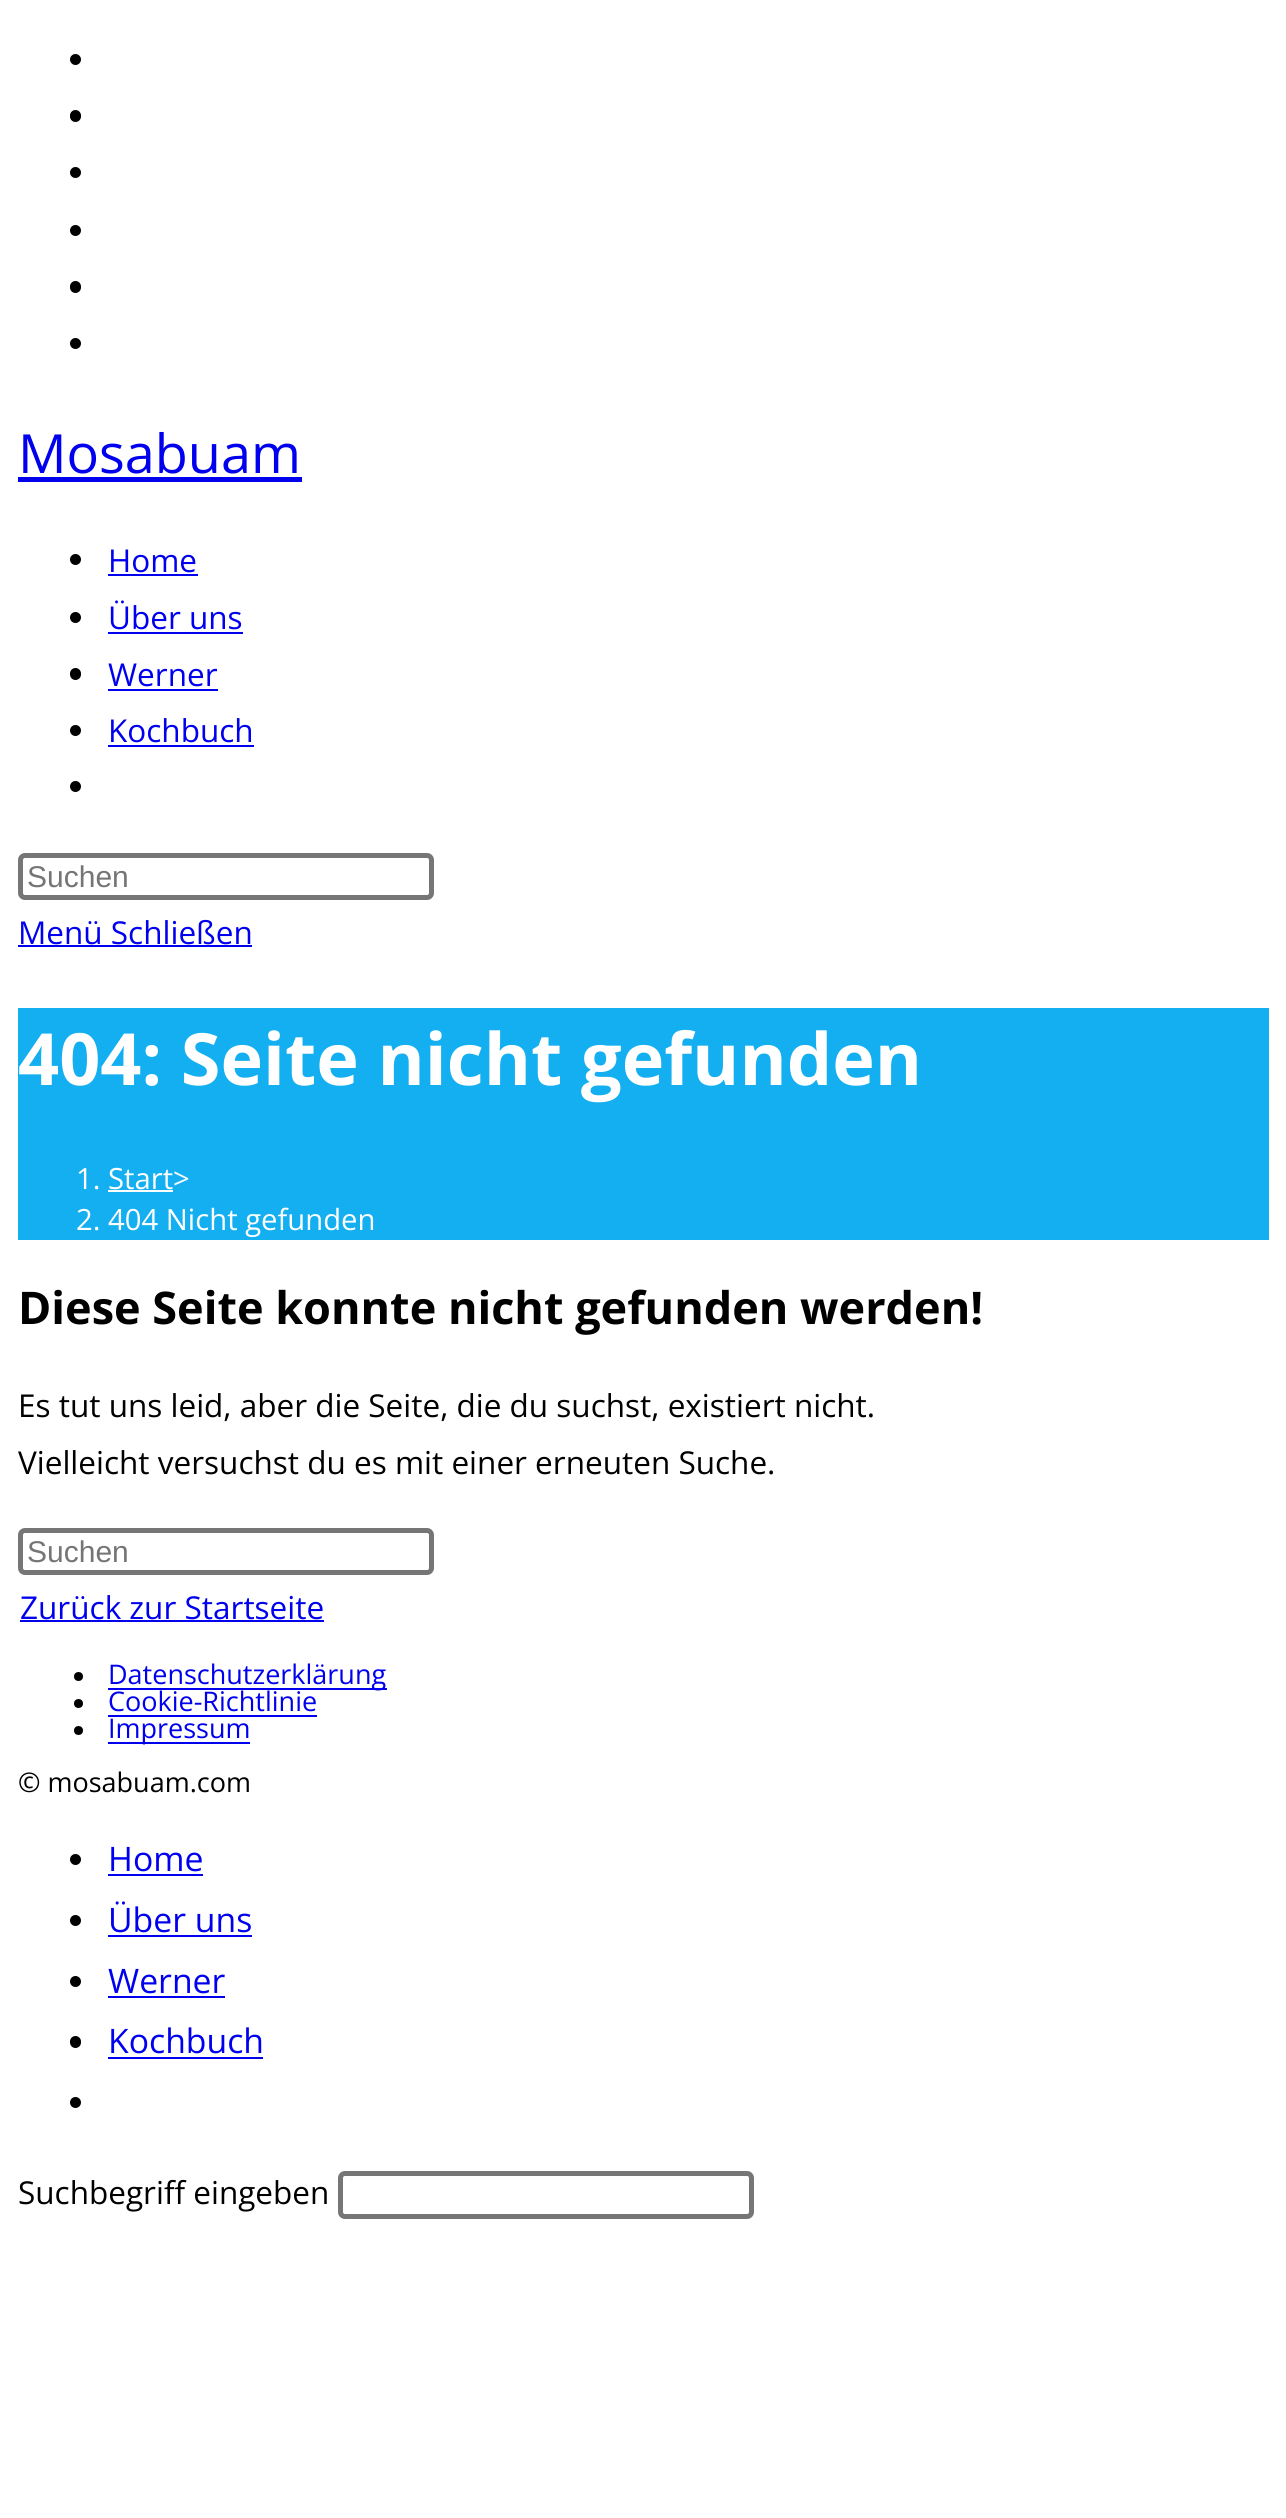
#include <cairo.h>
#include <math.h>
#include <stddef.h>

typedef struct { const char *family; double size; int italic, bold; unsigned color; } style_t;
static cairo_t *ctx;

static void ink(unsigned color) {
    cairo_set_source_rgb(ctx, (color >> 16) / 255.0, (color >> 8 & 255) / 255.0, (color & 255) / 255.0);
}

static void write(double x, double y, const char *s, const style_t *st) {
    cairo_select_font_face(ctx, st->family, st->italic ? CAIRO_FONT_SLANT_ITALIC : CAIRO_FONT_SLANT_NORMAL,
        st->bold ? CAIRO_FONT_WEIGHT_BOLD : CAIRO_FONT_WEIGHT_NORMAL);
    cairo_set_font_size(ctx, st->size);
    ink(st->color);
    cairo_move_to(ctx, x, y);
    cairo_show_text(ctx, s);
}

static void block(double x, double y, double w, double h, unsigned color) {
    ink(color);
    cairo_rectangle(ctx, x, y, w, h);
    cairo_fill(ctx);
}

static void round_path(double x, double y, double w, double h, double r) {
    cairo_new_sub_path(ctx);
    cairo_arc(ctx, x + w - r, y + h - r, r, 0, M_PI / 2);
    cairo_arc(ctx, x + r, y + h - r, r, M_PI / 2, M_PI);
    cairo_arc(ctx, x + r, y + r, r, M_PI, 1.5 * M_PI);
    cairo_arc(ctx, x + w - r, y + r, r, 1.5 * M_PI, 2 * M_PI);
    cairo_close_path(ctx);
}

static const style_t s1 = {"Open Sans", 54, 0, 0, 0x0000ee};
static const style_t s2 = {"Open Sans", 31.5, 0, 0, 0x0000ee};
static const style_t s3 = {"Liberation Sans", 30, 0, 0, 0x757575};
static const style_t s4 = {"Open Sans", 72, 0, 1, 0xffffff};
static const style_t s5 = {"Open Sans", 29.25, 0, 0, 0xffffff};
static const style_t s6 = {"Open Sans", 45, 0, 1, 0x000000};
static const style_t s7 = {"Open Sans", 31.5, 0, 0, 0x000000};
static const style_t s8 = {"Open Sans", 27, 0, 0, 0x0000ee};
static const style_t s9 = {"Open Sans", 27, 0, 0, 0x000000};
static const style_t s10 = {"Open Sans", 33.75, 0, 0, 0x0000ee};

int main(void) {
    cairo_surface_t *surface = cairo_image_surface_create(CAIRO_FORMAT_RGB24, 1286, 2518);
    ctx = cairo_create(surface);
    cairo_font_options_t *options = cairo_font_options_create();
    cairo_font_options_set_hint_metrics(options, CAIRO_HINT_METRICS_OFF);
    cairo_font_options_set_hint_style(options, CAIRO_HINT_STYLE_NONE);
    cairo_set_font_options(ctx, options);
    cairo_set_miter_limit(ctx, 4);
    ink(0xffffff);
    cairo_paint(ctx);
    ink(0x000000);
    cairo_arc(ctx, 75.5, 59.5, 5.5, 0, 2 * M_PI);
    cairo_fill(ctx);
    round_path(70, 110, 11, 12, 5.5);
    cairo_fill(ctx);
    cairo_arc(ctx, 75.5, 172.5, 5.5, 0, 2 * M_PI);
    cairo_fill(ctx);
    cairo_arc(ctx, 75.5, 230.5, 5.5, 0, 2 * M_PI);
    cairo_fill(ctx);
    round_path(70, 281, 11, 12, 5.5);
    cairo_fill(ctx);
    cairo_arc(ctx, 75.5, 343.5, 5.5, 0, 2 * M_PI);
    cairo_fill(ctx);
    write(18, 473, "Mosabuam", &s1);
    block(18, 477, 284, 5, 0x0000ee);
    ink(0x000000);
    cairo_new_path(ctx);
    cairo_arc(ctx, 75.5, 559.5, 5.5, 0, 2 * M_PI);
    cairo_fill(ctx);
    write(108, 572, "Home", &s2);
    block(108, 574, 90, 2, 0x0000ee);
    ink(0x000000);
    cairo_new_path(ctx);
    cairo_arc(ctx, 75.5, 617.5, 5.5, 0, 2 * M_PI);
    cairo_fill(ctx);
    write(108, 629, "Über uns", &s2);
    block(108, 632, 135, 2, 0x0000ee);
    ink(0x000000);
    round_path(70, 668, 11, 12, 5.5);
    cairo_fill(ctx);
    write(108, 686, "Werner", &s2);
    block(108, 689, 110, 2, 0x0000ee);
    ink(0x000000);
    cairo_new_path(ctx);
    cairo_arc(ctx, 75.5, 730.5, 5.5, 0, 2 * M_PI);
    cairo_fill(ctx);
    write(108, 742, "Kochbuch", &s2);
    block(108, 745, 146, 2, 0x0000ee);
    ink(0x000000);
    cairo_new_path(ctx);
    cairo_arc(ctx, 75.5, 786.5, 5.5, 0, 2 * M_PI);
    cairo_fill(ctx);
    round_path(20.5, 855.5, 411, 42, 4.5);
    ink(0x767676);
    cairo_set_line_width(ctx, 5);
    cairo_stroke(ctx);
    write(27, 887, "Suchen", &s3);
    write(18, 944, "Menü Schließen", &s2);
    block(18, 945, 234, 2, 0x0000ee);
    block(18, 1008, 1251, 232, 0x13aff0);
    write(18, 1085, "404: Seite nicht gefunden", &s4);
    write(76, 1189, "1. Start>", &s5);
    block(108, 1190, 65, 2, 0xffffff);
    write(76, 1230, "2. 404 Nicht gefunden", &s5);
    write(18, 1324, "Diese Seite konnte nicht gefunden werden!", &s6);
    write(18, 1417, "Es tut uns leid, aber die Seite, die du suchst, existiert nicht.", &s7);
    write(18, 1474, "Vielleicht versuchst du es mit einer erneuten Suche.", &s7);
    round_path(20.5, 1530.5, 411, 42, 4.5);
    ink(0x767676);
    cairo_stroke(ctx);
    write(27, 1562, "Suchen", &s3);
    write(20, 1619, "Zurück zur Startseite", &s2);
    block(20, 1620, 304, 2, 0x0000ee);
    ink(0x000000);
    cairo_new_path(ctx);
    cairo_arc(ctx, 78.5, 1676.5, 4.5, 0, 2 * M_PI);
    cairo_fill(ctx);
    block(108, 1688, 279, 2, 0x0000ee);
    write(108, 1684, "Datenschutzerklärung", &s8);
    ink(0x000000);
    cairo_new_path(ctx);
    cairo_arc(ctx, 78.5, 1703.5, 4.5, 0, 2 * M_PI);
    cairo_fill(ctx);
    write(108, 1711, "Cookie-Richtlinie", &s8);
    block(108, 1715, 209, 2, 0x0000ee);
    ink(0x000000);
    cairo_new_path(ctx);
    cairo_arc(ctx, 78.5, 1730.5, 4.5, 0, 2 * M_PI);
    cairo_fill(ctx);
    block(108, 1742, 142, 2, 0x0000ee);
    write(108, 1738, "Impressum", &s8);
    write(18, 1792, "© mosabuam.com", &s9);
    cairo_new_path(ctx);
    cairo_arc(ctx, 75.5, 1859.5, 5.5, 0, 2 * M_PI);
    cairo_fill(ctx);
    write(108, 1871, "Home", &s10);
    block(108, 1874, 95, 2, 0x0000ee);
    ink(0x000000);
    cairo_new_path(ctx);
    cairo_arc(ctx, 75.5, 1920.5, 5.5, 0, 2 * M_PI);
    cairo_fill(ctx);
    write(108, 1932, "Über uns", &s10);
    block(108, 1935, 144, 2, 0x0000ee);
    ink(0x000000);
    cairo_new_path(ctx);
    cairo_arc(ctx, 75.5, 1981.5, 5.5, 0, 2 * M_PI);
    cairo_fill(ctx);
    write(108, 1993, "Werner", &s10);
    block(108, 1996, 117, 2, 0x0000ee);
    ink(0x000000);
    round_path(70, 2036, 11, 12, 5.5);
    cairo_fill(ctx);
    write(108, 2053, "Kochbuch", &s10);
    block(108, 2057, 155, 2, 0x0000ee);
    ink(0x000000);
    cairo_new_path(ctx);
    cairo_arc(ctx, 75.5, 2102.5, 5.5, 0, 2 * M_PI);
    cairo_fill(ctx);
    write(18, 2204, "Suchbegriff eingeben", &s7);
    round_path(340.5, 2173.5, 411, 43, 4.5);
    ink(0x767676);
    cairo_stroke(ctx);
    cairo_surface_write_to_png(surface, "screenshot.png");
    cairo_font_options_destroy(options);
    cairo_destroy(ctx);
    cairo_surface_destroy(surface);
    return 0;
}
